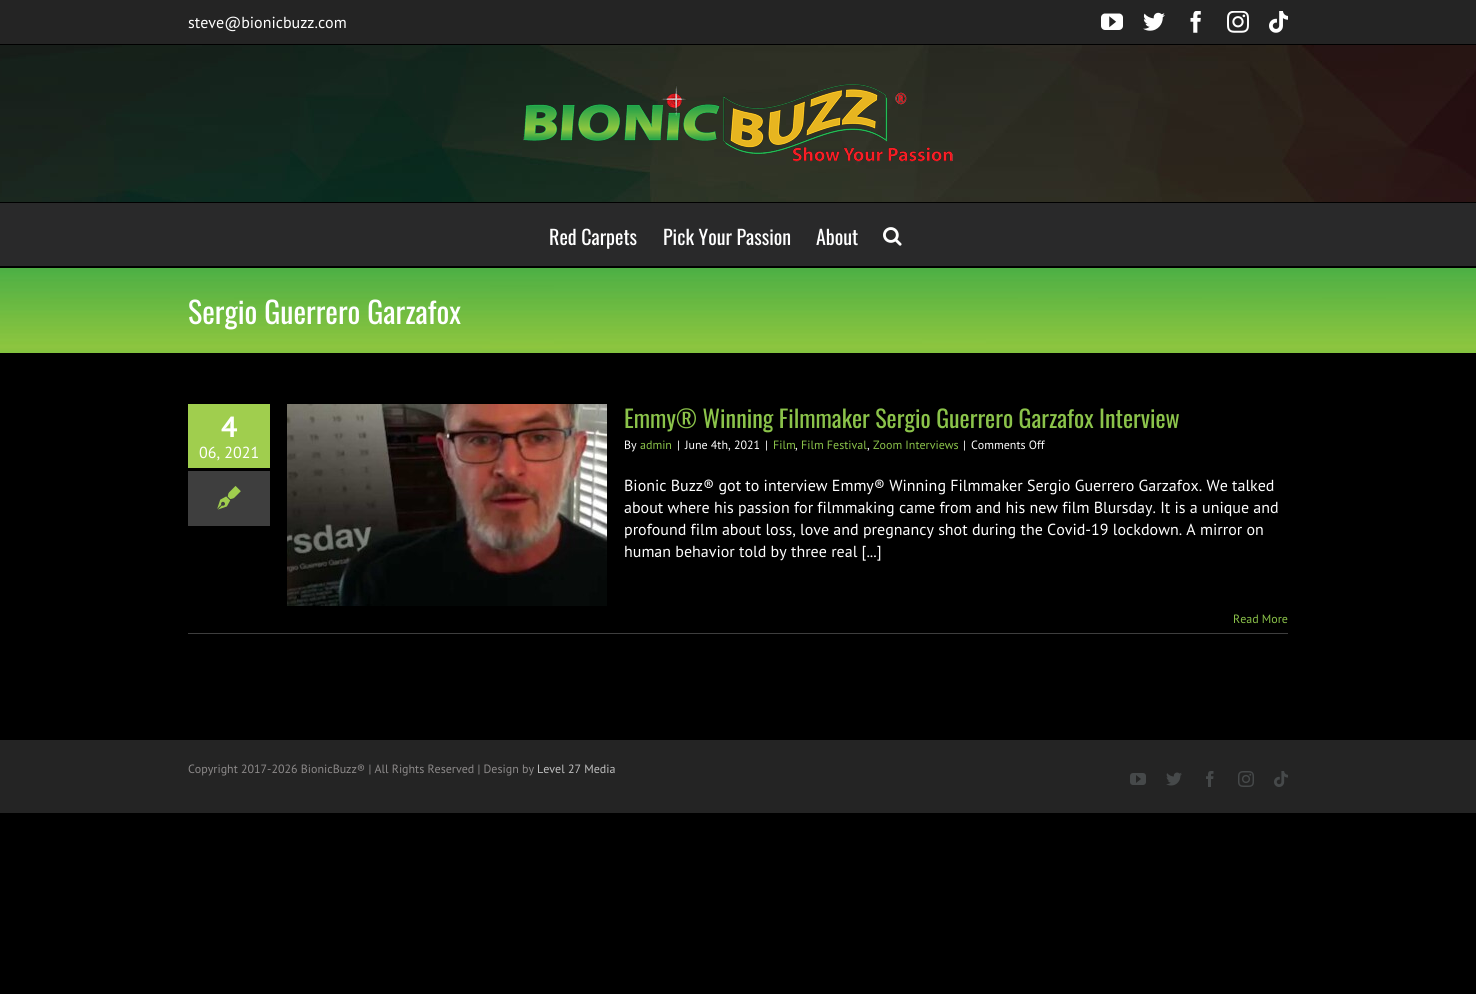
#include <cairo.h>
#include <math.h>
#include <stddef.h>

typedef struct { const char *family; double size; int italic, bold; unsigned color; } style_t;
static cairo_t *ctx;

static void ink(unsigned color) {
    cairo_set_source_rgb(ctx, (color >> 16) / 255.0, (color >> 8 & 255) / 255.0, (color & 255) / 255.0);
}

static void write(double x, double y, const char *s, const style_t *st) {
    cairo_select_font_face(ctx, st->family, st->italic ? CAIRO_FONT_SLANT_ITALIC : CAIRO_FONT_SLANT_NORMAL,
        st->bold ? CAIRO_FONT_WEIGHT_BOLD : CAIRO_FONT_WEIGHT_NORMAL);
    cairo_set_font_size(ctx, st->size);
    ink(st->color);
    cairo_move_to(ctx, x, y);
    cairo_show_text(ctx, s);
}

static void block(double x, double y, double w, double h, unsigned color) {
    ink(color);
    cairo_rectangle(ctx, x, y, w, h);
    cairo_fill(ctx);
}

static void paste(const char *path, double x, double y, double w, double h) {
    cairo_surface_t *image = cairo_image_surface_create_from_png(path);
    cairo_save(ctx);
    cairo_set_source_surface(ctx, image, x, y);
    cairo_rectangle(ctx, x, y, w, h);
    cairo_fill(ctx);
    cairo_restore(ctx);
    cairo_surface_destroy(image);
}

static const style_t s1 = {"PT Sans", 16, 0, 0, 0xffffff};
static const style_t s2 = {"Oswald", 20, 0, 0, 0xffffff};
static const style_t s3 = {"Oswald", 30, 0, 0, 0xffffff};
static const style_t s4 = {"PT Sans", 29, 0, 1, 0xffffff};
static const style_t s5 = {"Oswald", 24, 0, 0, 0x8bc34a};
static const style_t s6 = {"PT Sans", 12, 0, 0, 0xffffff};
static const style_t s7 = {"PT Sans", 12, 0, 0, 0x8bc34a};
static const style_t s8 = {"PT Sans", 12, 0, 0, 0x8c8989};
static const style_t s9 = {"PT Sans", 12, 0, 0, 0xbfbfbf};

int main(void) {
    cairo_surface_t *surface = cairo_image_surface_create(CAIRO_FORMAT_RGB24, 1476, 994);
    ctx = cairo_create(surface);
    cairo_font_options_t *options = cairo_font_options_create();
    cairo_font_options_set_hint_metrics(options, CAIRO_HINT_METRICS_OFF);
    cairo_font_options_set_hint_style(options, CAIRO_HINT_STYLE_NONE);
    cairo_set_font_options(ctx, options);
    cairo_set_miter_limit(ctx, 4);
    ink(0x000000);
    cairo_paint(ctx);
    block(0, 0, 1476, 44, 0x242424);
    write(188, 28, "steve@bionicbuzz.com", &s1);
    paste("pic1.png", 1101, 13, 22, 17);
    paste("pic2.png", 1143, 12, 22, 19);
    paste("pic3.png", 1190, 11, 11, 22);
    paste("pic4.png", 1227, 11, 22, 22);
    paste("pic5.png", 1269, 11, 19, 22);
    paste("pic6.png", 0, 45, 1476, 157);
    paste("pic7.png", 523, 84, 430, 78);
    block(0, 203, 1476, 63, 0x29292a);
    write(549, 245, "Red Carpets", &s2);
    write(663, 245, "Pick Your Passion", &s2);
    write(816, 245, "About", &s2);
    paste("pic8.png", 883, 227, 19, 19);
    paste("pic9.png", 0, 268, 1476, 85);
    write(188, 324, "Sergio Guerrero Garzafox", &s3);
    block(188, 404, 82, 64, 0xa0ce4e);
    write(221, 437, "4", &s4);
    write(199, 458, "06, 2021", &s1);
    block(188, 471, 82, 55, 0x3e3e3e);
    paste("pic10.png", 217, 486, 24, 24);
    paste("pic11.png", 287, 404, 320, 202);
    write(624, 428, "Emmy® Winning Filmmaker Sergio Guerrero Garzafox Interview", &s5);
    write(624, 449, "By", &s6);
    write(640, 449, "admin", &s7);
    write(677, 449, "|", &s6);
    write(685, 449, "June 4th, 2021", &s6);
    write(765, 449, "|", &s6);
    write(773, 449, "Film", &s7);
    write(795, 449, ",", &s6);
    write(801, 449, "Film Festival", &s7);
    write(867, 449, ",", &s6);
    write(873, 449, "Zoom Interviews", &s7);
    write(963, 449, "|", &s6);
    write(971, 449, "Comments Off", &s6);
    write(624, 491, "Bionic Buzz® got to interview Emmy® Winning Filmmaker Sergio Guerrero Garzafox. We talked", &s1);
    write(624, 513, "about where his passion for filmmaking came from and his new film Blursday. It is a unique and", &s1);
    write(624, 535, "profound film about loss, love and pregnancy shot during the Covid-19 lockdown. A mirror on", &s1);
    write(624, 557, "human behavior told by three real [...]", &s1);
    block(188, 633, 1100, 1, 0x3e3e3e);
    write(1233, 623, "Read More", &s7);
    block(0, 740, 1476, 73, 0x242424);
    write(188, 773, "Copyright 2017-2026 BionicBuzz® | All Rights Reserved | Design by", &s8);
    write(537, 773, "Level 27 Media", &s9);
    paste("pic12.png", 1130, 773, 16, 12);
    paste("pic13.png", 1166, 772, 16, 14);
    paste("pic14.png", 1206, 771, 8, 16);
    paste("pic15.png", 1238, 771, 16, 16);
    paste("pic16.png", 1274, 771, 14, 16);
    cairo_surface_write_to_png(surface, "screenshot.png");
    cairo_font_options_destroy(options);
    cairo_destroy(ctx);
    cairo_surface_destroy(surface);
    return 0;
}
